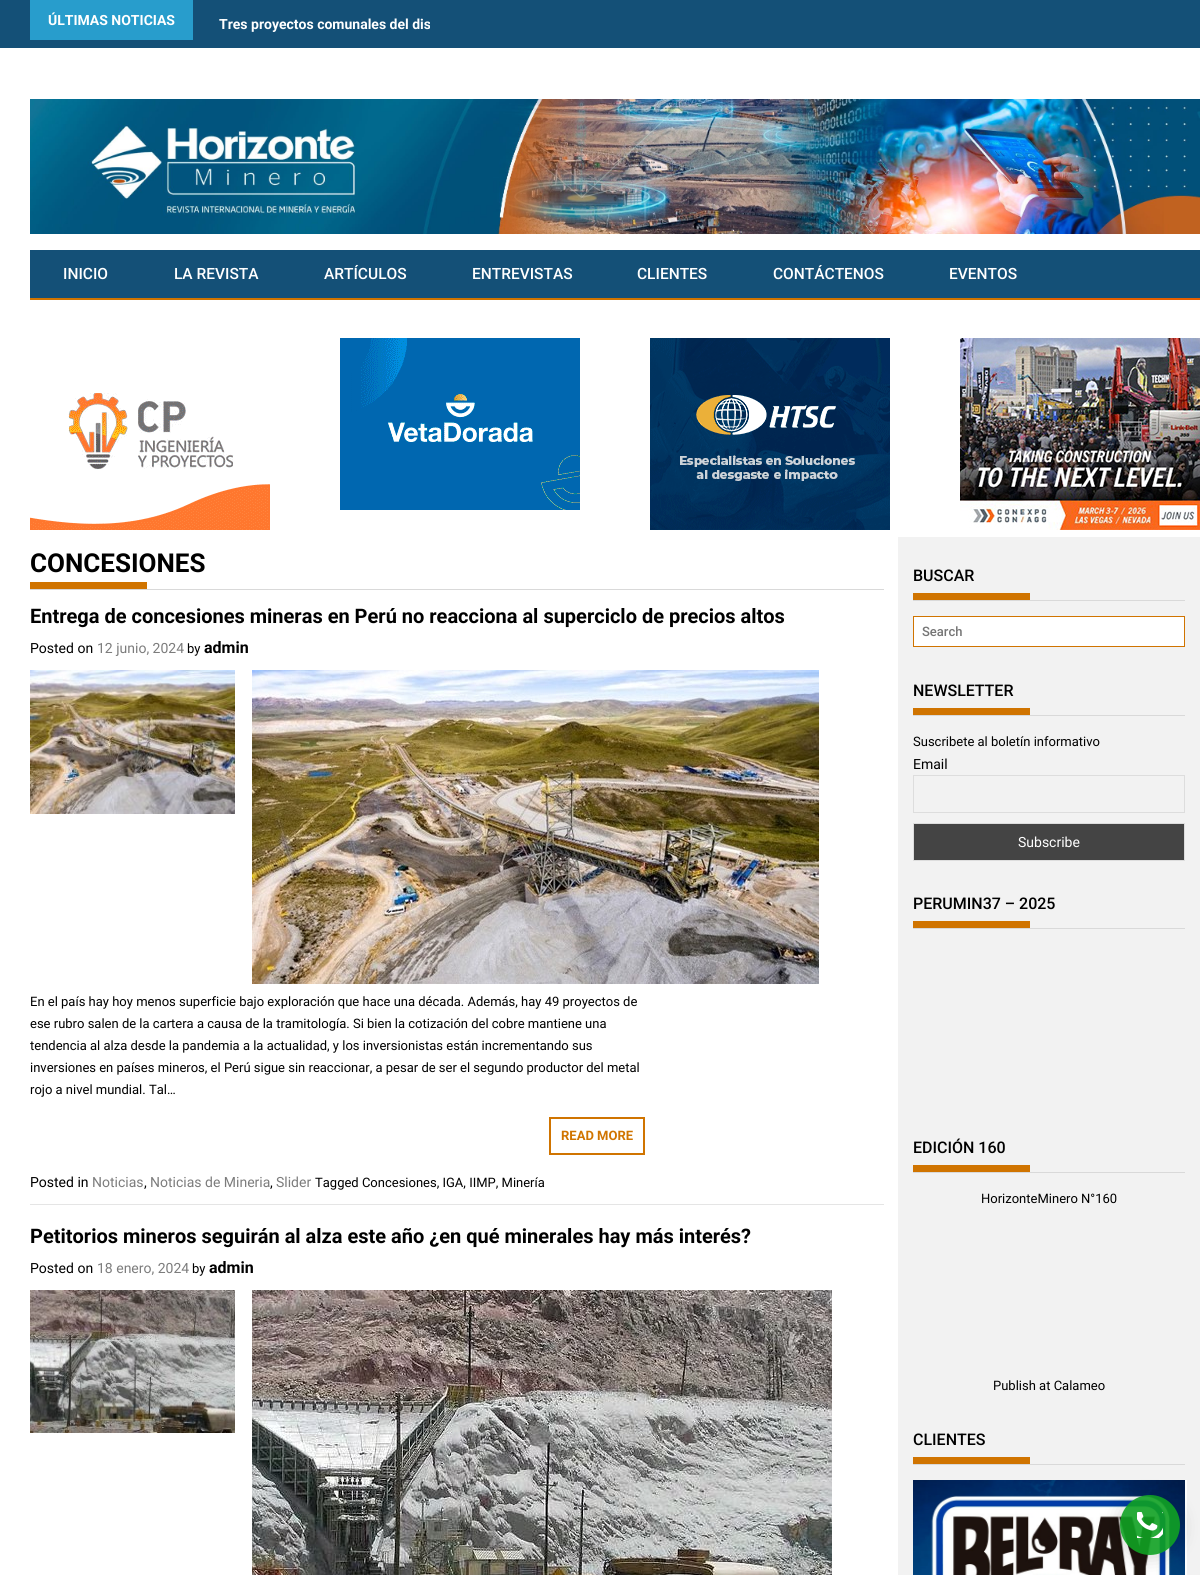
#include <cairo.h>
#include <math.h>
#include <stddef.h>

typedef struct { const char *family; double size; int italic, bold; unsigned color; } style_t;
static cairo_t *ctx;

static void ink(unsigned color) {
    cairo_set_source_rgb(ctx, (color >> 16) / 255.0, (color >> 8 & 255) / 255.0, (color & 255) / 255.0);
}

static void write(double x, double y, const char *s, const style_t *st) {
    cairo_select_font_face(ctx, st->family, st->italic ? CAIRO_FONT_SLANT_ITALIC : CAIRO_FONT_SLANT_NORMAL,
        st->bold ? CAIRO_FONT_WEIGHT_BOLD : CAIRO_FONT_WEIGHT_NORMAL);
    cairo_set_font_size(ctx, st->size);
    ink(st->color);
    cairo_move_to(ctx, x, y);
    cairo_show_text(ctx, s);
}

static void block(double x, double y, double w, double h, unsigned color) {
    ink(color);
    cairo_rectangle(ctx, x, y, w, h);
    cairo_fill(ctx);
}

static void round_path(double x, double y, double w, double h, double r) {
    cairo_new_sub_path(ctx);
    cairo_arc(ctx, x + w - r, y + h - r, r, 0, M_PI / 2);
    cairo_arc(ctx, x + r, y + h - r, r, M_PI / 2, M_PI);
    cairo_arc(ctx, x + r, y + r, r, M_PI, 1.5 * M_PI);
    cairo_arc(ctx, x + w - r, y + r, r, 1.5 * M_PI, 2 * M_PI);
    cairo_close_path(ctx);
}

static void blur_box(double x, double y, double w, double h, double r, double blur, double alpha) {
    cairo_push_group_with_content(ctx, CAIRO_CONTENT_ALPHA);
    cairo_set_operator(ctx, CAIRO_OPERATOR_SOURCE);
    for (int i = 15; i >= -15 && fmin(w, h) + blur * i / 3 > 0; i -= 2) {
        double e = blur * i / 6;
        cairo_set_source_rgba(ctx, 0, 0, 0, alpha * erfc((i - 1) / 8.5) / 2);
        round_path(x - e, y - e, w + 2 * e, h + 2 * e, fmax(0, fmin(r + e + blur * .6, fmin(w, h) / 2 + e)));
        cairo_fill(ctx);
    }
    cairo_pattern_t *soft = cairo_pop_group(ctx);
    cairo_mask(ctx, soft);
    cairo_pattern_destroy(soft);
}

static void paste(const char *path, double x, double y, double w, double h) {
    cairo_surface_t *image = cairo_image_surface_create_from_png(path);
    cairo_save(ctx);
    cairo_set_source_surface(ctx, image, x, y);
    cairo_rectangle(ctx, x, y, w, h);
    cairo_fill(ctx);
    cairo_restore(ctx);
    cairo_surface_destroy(image);
}

static const style_t s1 = {"Roboto", 14, 0, 1, 0xffffff};
static const style_t s2 = {"Roboto Medium", 15.5, 0, 0, 0xffffff};
static const style_t s3 = {"Roboto", 26, 0, 1, 0x000000};
static const style_t s4 = {"Roboto", 20, 0, 1, 0x000000};
static const style_t s5 = {"Roboto", 14, 0, 0, 0x000000};
static const style_t s6 = {"Roboto", 14, 0, 0, 0x7c7c7c};
static const style_t s7 = {"Roboto", 13, 0, 0, 0x000000};
static const style_t s8 = {"Roboto", 16, 0, 1, 0x000000};
static const style_t s9 = {"Roboto", 13, 0, 1, 0xd07400};
static const style_t s10 = {"Roboto Medium", 16, 0, 0, 0x000000};
static const style_t s11 = {"Roboto Medium", 13, 0, 0, 0x757575};
static const style_t s12 = {"Roboto", 14, 0, 0, 0xffffff};

int main(void) {
    cairo_surface_t *surface = cairo_image_surface_create(CAIRO_FORMAT_RGB24, 1200, 1575);
    ctx = cairo_create(surface);
    cairo_font_options_t *options = cairo_font_options_create();
    cairo_font_options_set_hint_metrics(options, CAIRO_HINT_METRICS_OFF);
    cairo_font_options_set_hint_style(options, CAIRO_HINT_STYLE_NONE);
    cairo_set_font_options(ctx, options);
    cairo_set_miter_limit(ctx, 4);
    ink(0x145077);
    cairo_paint(ctx);
    block(30, 0, 163, 40, 0x289dcc);
    write(48, 25, "ÚLTIMAS NOTICIAS", &s1);
    cairo_save(ctx);
    cairo_rectangle(ctx, 193, 0, 237, 48);
    cairo_clip(ctx);
    write(219, 29, "Tres proyectos comunales del dis", &s1);
    cairo_restore(ctx);
    block(0, 48, 1200, 1527, 0xffffff);
    paste("pic1.png", 30, 99, 1170, 135);
    block(1050, 250, 150, 48, 0x145077);
    block(1050, 298, 150, 2, 0xe65f00);
    block(30, 250, 1020, 48, 0x145077);
    block(30, 298, 1020, 2, 0xd07400);
    write(63, 279, "INICIO", &s2);
    write(174, 279, "LA REVISTA", &s2);
    write(324, 279, "ARTÍCULOS", &s2);
    write(472, 279, "ENTREVISTAS", &s2);
    write(637, 279, "CLIENTES", &s2);
    write(773, 279, "CONTÁCTENOS", &s2);
    write(949, 279, "EVENTOS", &s2);
    paste("pic2.png", 30, 393, 240, 137);
    paste("pic3.png", 340, 338, 240, 172);
    paste("pic4.png", 650, 338, 240, 192);
    paste("pic5.png", 960, 338, 240, 192);
    block(30, 589, 854, 1, 0xd9d9d9);
    write(30, 572, "CONCESIONES", &s3);
    block(30, 582, 117, 7, 0xd07400);
    block(30, 1204, 854, 1, 0xe5e5e5);
    write(30, 623, "Entrega de concesiones mineras en Perú no reacciona al superciclo de precios altos", &s4);
    write(30, 653, "Posted on", &s5);
    write(97, 653, "12 junio, 2024", &s6);
    write(187, 653, "by", &s7);
    write(204, 653, "admin", &s8);
    paste("pic6.png", 30, 670, 205, 144);
    paste("pic7.png", 252, 670, 567, 314);
    write(30, 1006, "En el país hay hoy menos superficie bajo exploración que hace una década. Además, hay 49 proyectos de", &s7);
    write(30, 1028, "ese rubro salen de la cartera a causa de la tramitología. Si bien la cotización del cobre mantiene una", &s7);
    write(30, 1050, "tendencia al alza desde la pandemia a la actualidad, y los inversionistas están incrementando sus", &s7);
    write(30, 1072, "inversiones en países mineros, el Perú sigue sin reaccionar, a pesar de ser el segundo productor del metal", &s7);
    write(30, 1094, "rojo a nivel mundial. Tal…", &s7);
    cairo_rectangle(ctx, 550, 1118, 94, 36);
    ink(0xd07400);
    cairo_stroke(ctx);
    write(561, 1140, "READ MORE", &s9);
    write(30, 1187, "Posted in", &s5);
    write(92, 1187, "Noticias", &s6);
    write(144, 1187, ",", &s5);
    write(150, 1187, "Noticias de Mineria", &s6);
    write(270, 1187, ",", &s5);
    write(276, 1187, "Slider", &s6);
    write(315, 1187, "Tagged Concesiones, IGA, IIMP, Minería", &s7);
    write(30, 1243, "Petitorios mineros seguirán al alza este año ¿en qué minerales hay más interés?", &s4);
    write(30, 1273, "Posted on", &s5);
    write(97, 1273, "18 enero, 2024", &s6);
    write(192, 1273, "by", &s7);
    write(209, 1273, "admin", &s8);
    paste("pic8.png", 30, 1290, 205, 143);
    paste("pic9.png", 252, 1290, 580, 285);
    block(898, 537, 302, 1038, 0xf2f2f2);
    block(913, 600, 272, 1, 0xd9d9d9);
    write(913, 581, "BUSCAR", &s10);
    block(913, 593, 117, 7, 0xd07400);
    ink(0xffffff);
    cairo_rectangle(ctx, 913.5, 616.5, 271, 30);
    cairo_fill_preserve(ctx);
    ink(0xd07400);
    cairo_set_line_width(ctx, 1);
    cairo_stroke(ctx);
    write(922, 636, "Search", &s11);
    block(913, 715, 272, 1, 0xd9d9d9);
    write(913, 696, "NEWSLETTER", &s10);
    block(913, 708, 117, 7, 0xd07400);
    write(913, 746, "Suscribete al boletín informativo", &s7);
    write(913, 769, "Email", &s5);
    cairo_rectangle(ctx, 913.5, 775.5, 271, 37);
    ink(0xdddddd);
    cairo_stroke(ctx);
    ink(0x444444);
    cairo_rectangle(ctx, 913.5, 823.5, 271, 37);
    cairo_fill_preserve(ctx);
    ink(0xdddddd);
    cairo_stroke(ctx);
    write(1018, 847, "Subscribe", &s12);
    block(913, 928, 272, 1, 0xd9d9d9);
    write(913, 909, "PERUMIN37 – 2025", &s10);
    block(913, 921, 117, 7, 0xd07400);
    block(913, 1172, 272, 1, 0xd9d9d9);
    write(913, 1153, "EDICIÓN 160", &s10);
    block(913, 1165, 117, 7, 0xd07400);
    write(981, 1203, "HorizonteMinero N°160", &s7);
    write(993, 1390, "Publish at Calameo", &s7);
    block(913, 1464, 272, 1, 0xd9d9d9);
    write(913, 1445, "CLIENTES", &s10);
    block(913, 1457, 117, 7, 0xd07400);
    paste("pic10.png", 913, 1480, 272, 95);
    block(1185, 1480, 2, 95, 0xffffff);
    cairo_save(ctx);
    cairo_set_fill_rule(ctx, CAIRO_FILL_RULE_EVEN_ODD);
    cairo_new_path(ctx);
    cairo_move_to(ctx, 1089, 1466);
    cairo_line_to(ctx, 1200, 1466);
    cairo_line_to(ctx, 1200, 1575);
    cairo_line_to(ctx, 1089, 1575);
    cairo_close_path(ctx);
    cairo_move_to(ctx, 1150, 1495);
    cairo_curve_to(ctx, 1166.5, 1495, 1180, 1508.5, 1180, 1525);
    cairo_curve_to(ctx, 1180, 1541.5, 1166.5, 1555, 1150, 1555);
    cairo_curve_to(ctx, 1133.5, 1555, 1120, 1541.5, 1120, 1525);
    cairo_curve_to(ctx, 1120, 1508.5, 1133.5, 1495, 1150, 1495);
    cairo_close_path(ctx);
    cairo_clip(ctx);
    ink(0x000000);
    blur_box(1120, 1497, 60, 60, 30, 10, 0.16);
    cairo_restore(ctx);
    cairo_set_source_rgba(ctx, 0.063, 0.631, 0.137, 0.9);
    cairo_arc(ctx, 1150, 1525, 30, 0, 2 * M_PI);
    cairo_fill(ctx);
    paste("pic11.png", 1137, 1512, 26, 26);
    cairo_surface_write_to_png(surface, "screenshot.png");
    cairo_font_options_destroy(options);
    cairo_destroy(ctx);
    cairo_surface_destroy(surface);
    return 0;
}
